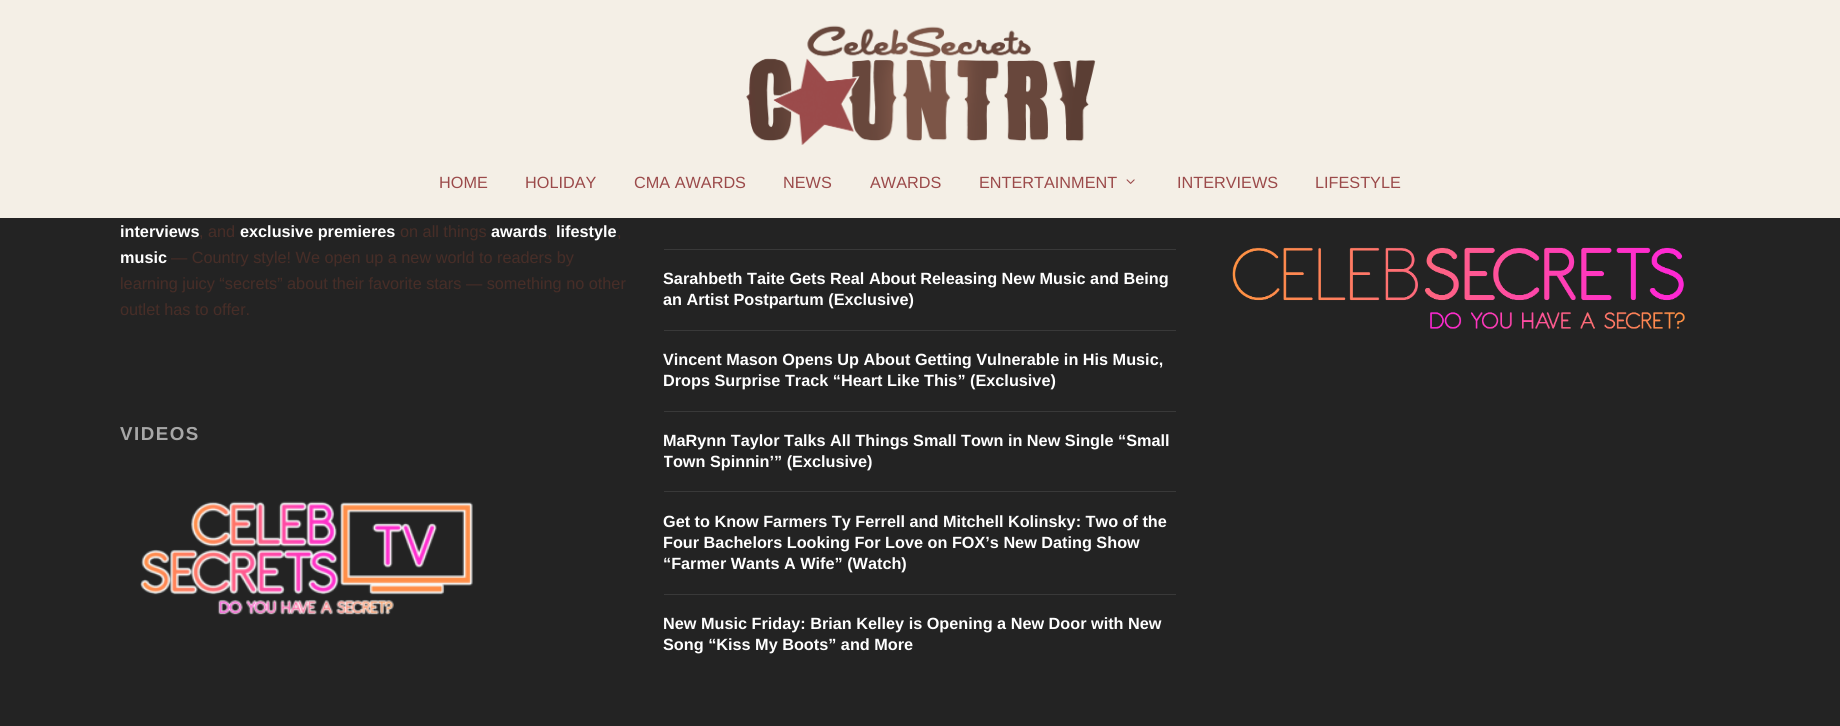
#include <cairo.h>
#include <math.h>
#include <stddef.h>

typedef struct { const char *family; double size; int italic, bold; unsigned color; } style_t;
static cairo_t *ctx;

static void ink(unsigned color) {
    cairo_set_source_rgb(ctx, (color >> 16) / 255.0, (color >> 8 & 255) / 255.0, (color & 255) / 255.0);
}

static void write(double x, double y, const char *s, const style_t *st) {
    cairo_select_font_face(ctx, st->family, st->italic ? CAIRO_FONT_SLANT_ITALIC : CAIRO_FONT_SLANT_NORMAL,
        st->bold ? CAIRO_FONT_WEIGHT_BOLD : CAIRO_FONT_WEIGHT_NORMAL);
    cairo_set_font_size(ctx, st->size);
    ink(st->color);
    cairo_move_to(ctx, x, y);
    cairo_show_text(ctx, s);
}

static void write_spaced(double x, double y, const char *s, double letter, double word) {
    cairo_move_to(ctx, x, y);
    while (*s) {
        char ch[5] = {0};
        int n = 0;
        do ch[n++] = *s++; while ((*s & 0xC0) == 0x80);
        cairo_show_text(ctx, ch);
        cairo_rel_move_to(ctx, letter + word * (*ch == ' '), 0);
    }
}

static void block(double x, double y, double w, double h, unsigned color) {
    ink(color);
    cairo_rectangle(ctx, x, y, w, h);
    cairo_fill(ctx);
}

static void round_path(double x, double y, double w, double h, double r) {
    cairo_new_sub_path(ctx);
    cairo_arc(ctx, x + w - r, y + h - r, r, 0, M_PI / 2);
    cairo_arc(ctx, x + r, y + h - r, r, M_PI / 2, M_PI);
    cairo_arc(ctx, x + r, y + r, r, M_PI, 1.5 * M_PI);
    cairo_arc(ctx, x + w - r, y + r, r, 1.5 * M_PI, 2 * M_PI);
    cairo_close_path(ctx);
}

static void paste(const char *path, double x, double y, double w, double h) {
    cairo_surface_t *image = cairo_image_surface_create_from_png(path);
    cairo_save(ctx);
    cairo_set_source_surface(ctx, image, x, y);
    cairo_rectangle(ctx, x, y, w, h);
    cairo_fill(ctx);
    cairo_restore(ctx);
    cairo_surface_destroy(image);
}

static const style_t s1 = {"Liberation Sans", 16.25, 0, 0, 0x9b4a4a};
static const style_t s2 = {"Liberation Sans", 16.25, 0, 1, 0xffffff};
static const style_t s3 = {"Liberation Sans", 16.25, 0, 0, 0x472d27};

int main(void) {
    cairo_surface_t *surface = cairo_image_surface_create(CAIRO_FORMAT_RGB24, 1840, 726);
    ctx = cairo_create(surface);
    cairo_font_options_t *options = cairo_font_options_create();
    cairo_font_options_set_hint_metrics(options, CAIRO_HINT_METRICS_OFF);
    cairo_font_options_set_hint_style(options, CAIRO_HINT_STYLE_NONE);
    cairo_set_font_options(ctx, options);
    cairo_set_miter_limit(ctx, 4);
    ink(0x232323);
    cairo_paint(ctx);
    block(0, 0, 1840, 218, 0xf4efe6);
    paste("pic1.png", 746, 25, 350, 120);
    write(439, 188, "HOME", &s1);
    write(525, 188, "HOLIDAY", &s1);
    write(634, 188, "CMA AWARDS", &s1);
    write(783, 188, "NEWS", &s1);
    write(870, 188, "AWARDS", &s1);
    write(979, 188, "ENTERTAINMENT", &s1);
    paste("pic2.png", 1126, 179, 9, 5);
    write(1177, 188, "INTERVIEWS", &s1);
    write(1315, 188, "LIFESTYLE", &s1);
    write(120, 237, "interviews", &s2);
    write(199, 237, ", and", &s3);
    write(240, 237, "exclusive premieres", &s2);
    write(400, 237, "on all things", &s3);
    write(491, 237, "awards", &s2);
    write(547, 237, ",", &s3);
    write(556, 237, "lifestyle", &s2);
    write(617, 237, ",", &s3);
    write(120, 263, "music", &s2);
    write(171, 263, "— Country style! We open up a new world to readers by", &s3);
    write(120, 289, "learning juicy “secrets” about their favorite stars — something no other", &s3);
    write(120, 315, "outlet has to offer.", &s3);
    cairo_select_font_face(ctx, "Liberation Sans", CAIRO_FONT_SLANT_NORMAL, CAIRO_FONT_WEIGHT_BOLD);
    cairo_set_font_size(ctx, 18.75);
    ink(0xa7a7a7);
    write_spaced(120, 440, "VIDEOS", 1.5, 0);
    paste("pic3.png", 140, 501, 333, 114);
    block(664, 249, 512, 1, 0x393939);
    block(664, 330, 512, 1, 0x393939);
    write(663, 284, "Sarahbeth Taite Gets Real About Releasing New Music and Being", &s2);
    write(663, 305, "an Artist Postpartum (Exclusive)", &s2);
    block(664, 411, 512, 1, 0x393939);
    write(663, 365, "Vincent Mason Opens Up About Getting Vulnerable in His Music,", &s2);
    write(663, 386, "Drops Surprise Track “Heart Like This” (Exclusive)", &s2);
    block(664, 491, 512, 1, 0x393939);
    write(663, 446, "MaRynn Taylor Talks All Things Small Town in New Single “Small", &s2);
    cairo_save(ctx);
    round_path(664, 75, 512, 600, 4);
    cairo_clip(ctx);
    write(663, 467, "Town Spinnin’” (Exclusive)", &s2);
    cairo_restore(ctx);
    block(664, 594, 512, 1, 0x393939);
    write(663, 527, "Get to Know Farmers Ty Ferrell and Mitchell Kolinsky: Two of the", &s2);
    write(663, 548, "Four Bachelors Looking For Love on FOX’s New Dating Show", &s2);
    write(663, 569, "“Farmer Wants A Wife” (Watch)", &s2);
    write(663, 629, "New Music Friday: Brian Kelley is Opening a New Door with New", &s2);
    write(663, 650, "Song “Kiss My Boots” and More", &s2);
    paste("pic4.png", 1232, 247, 453, 82);
    cairo_surface_write_to_png(surface, "screenshot.png");
    cairo_font_options_destroy(options);
    cairo_destroy(ctx);
    cairo_surface_destroy(surface);
    return 0;
}
